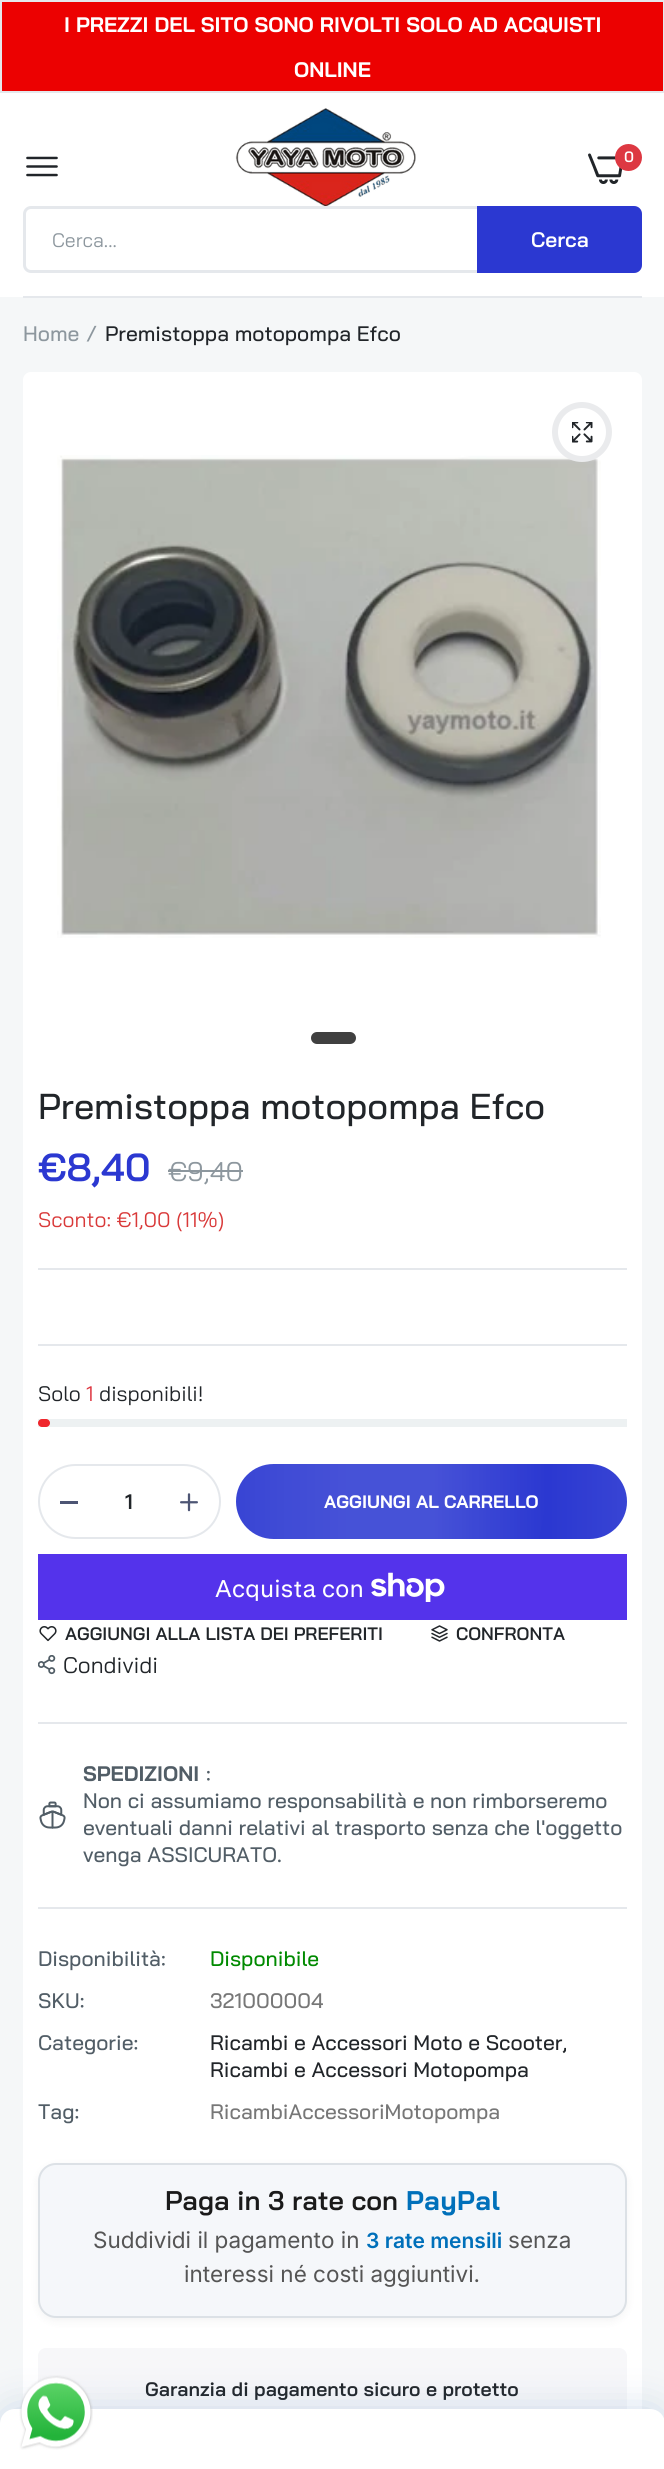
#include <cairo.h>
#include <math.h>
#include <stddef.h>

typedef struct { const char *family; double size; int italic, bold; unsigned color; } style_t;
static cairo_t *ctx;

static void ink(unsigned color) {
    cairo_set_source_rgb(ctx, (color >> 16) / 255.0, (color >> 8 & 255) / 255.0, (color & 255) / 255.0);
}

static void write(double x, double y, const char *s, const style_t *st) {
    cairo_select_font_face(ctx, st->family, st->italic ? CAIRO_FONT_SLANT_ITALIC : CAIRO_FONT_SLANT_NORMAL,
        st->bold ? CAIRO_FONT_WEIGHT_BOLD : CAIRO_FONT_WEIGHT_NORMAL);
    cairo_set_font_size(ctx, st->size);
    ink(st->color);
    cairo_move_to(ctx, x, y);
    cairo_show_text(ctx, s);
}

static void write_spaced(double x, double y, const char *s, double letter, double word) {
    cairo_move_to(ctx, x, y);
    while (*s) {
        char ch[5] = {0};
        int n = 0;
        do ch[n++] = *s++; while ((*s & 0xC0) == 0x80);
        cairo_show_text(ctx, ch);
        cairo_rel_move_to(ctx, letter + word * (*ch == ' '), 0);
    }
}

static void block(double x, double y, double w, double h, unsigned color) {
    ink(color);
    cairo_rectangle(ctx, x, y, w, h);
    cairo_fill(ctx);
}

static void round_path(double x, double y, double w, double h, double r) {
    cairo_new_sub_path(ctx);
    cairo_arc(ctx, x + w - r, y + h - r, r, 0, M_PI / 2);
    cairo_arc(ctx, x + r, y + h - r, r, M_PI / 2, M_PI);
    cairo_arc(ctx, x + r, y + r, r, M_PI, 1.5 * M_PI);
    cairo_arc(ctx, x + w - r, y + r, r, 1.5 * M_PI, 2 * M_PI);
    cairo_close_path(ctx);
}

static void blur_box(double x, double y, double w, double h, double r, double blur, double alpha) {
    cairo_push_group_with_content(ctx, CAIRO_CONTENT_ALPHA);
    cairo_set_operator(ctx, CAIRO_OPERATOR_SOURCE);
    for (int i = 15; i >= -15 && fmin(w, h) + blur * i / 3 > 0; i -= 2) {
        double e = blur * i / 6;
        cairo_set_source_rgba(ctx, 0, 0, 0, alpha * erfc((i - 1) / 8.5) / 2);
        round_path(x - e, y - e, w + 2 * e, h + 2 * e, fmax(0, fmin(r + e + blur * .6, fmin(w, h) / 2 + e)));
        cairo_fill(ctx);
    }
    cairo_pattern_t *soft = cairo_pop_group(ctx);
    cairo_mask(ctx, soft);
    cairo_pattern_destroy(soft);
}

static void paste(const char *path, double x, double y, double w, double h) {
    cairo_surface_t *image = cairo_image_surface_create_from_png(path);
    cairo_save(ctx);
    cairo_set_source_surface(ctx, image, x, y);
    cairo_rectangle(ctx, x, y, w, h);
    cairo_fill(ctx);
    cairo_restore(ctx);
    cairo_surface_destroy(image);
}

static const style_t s1 = {"Bai Jamjuree", 21, 0, 1, 0xffffff};
static const style_t s2 = {"Bai Jamjuree SemiBold", 15, 0, 0, 0xffffff};
static const style_t s3 = {"Bai Jamjuree", 19.5, 0, 0, 0x8d979e};
static const style_t s4 = {"Bai Jamjuree SemiBold", 21, 0, 0, 0xffffff};
static const style_t s5 = {"Bai Jamjuree Medium", 21, 0, 0, 0x8d979e};
static const style_t s6 = {"Bai Jamjuree Medium", 21, 0, 0, 0x212529};
static const style_t s7 = {"Bai Jamjuree Medium", 36, 0, 0, 0x212529};
static const style_t s8 = {"Bai Jamjuree SemiBold", 39, 0, 0, 0x2b38d1};
static const style_t s9 = {"Bai Jamjuree", 27, 0, 0, 0x8d979e};
static const style_t s10 = {"Bai Jamjuree", 21, 0, 0, 0xd93939};
static const style_t s11 = {"Bai Jamjuree", 21, 0, 0, 0x212529};
static const style_t s12 = {"Bai Jamjuree", 21, 0, 0, 0xdd3842};
static const style_t s13 = {"Bai Jamjuree SemiBold", 21, 0, 0, 0x212529};
static const style_t s14 = {"Bai Jamjuree", 18, 0, 1, 0xffffff};
static const style_t s15 = {"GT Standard", 24, 0, 0, 0xffffff};
static const style_t s16 = {"Bai Jamjuree SemiBold", 18, 0, 0, 0x212529};
static const style_t s17 = {"Bai Jamjuree", 22.5, 0, 0, 0x212529};
static const style_t s18 = {"Bai Jamjuree", 21, 0, 1, 0x515d66};
static const style_t s19 = {"Bai Jamjuree Medium", 21, 0, 0, 0x515d66};
static const style_t s20 = {"Bai Jamjuree Medium", 21, 0, 0, 0x008a00};
static const style_t s21 = {"Bai Jamjuree Medium", 21, 0, 0, 0x777777};
static const style_t s22 = {"Bai Jamjuree SemiBold", 27, 0, 0, 0x1a1a1a};
static const style_t s23 = {"Inter", 22.5, 0, 0, 0x555555};
static const style_t s24 = {"Inter SemiBold", 21, 0, 0, 0x0070ba};
static const style_t s25 = {"Bai Jamjuree SemiBold", 19.5, 0, 0, 0x212529};

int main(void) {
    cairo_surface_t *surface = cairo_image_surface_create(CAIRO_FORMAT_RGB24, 664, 2469);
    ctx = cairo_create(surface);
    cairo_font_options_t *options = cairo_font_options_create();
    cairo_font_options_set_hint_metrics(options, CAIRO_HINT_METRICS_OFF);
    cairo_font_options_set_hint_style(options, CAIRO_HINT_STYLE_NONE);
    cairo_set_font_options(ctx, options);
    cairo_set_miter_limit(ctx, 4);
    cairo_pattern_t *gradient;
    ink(0xf5f7f8);
    cairo_paint(ctx);
    ink(0xec0101);
    cairo_rectangle(ctx, 1, 1, 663, 91);
    cairo_fill_preserve(ctx);
    ink(0xe5e8ec);
    cairo_stroke(ctx);
    write(64, 32, "I PREZZI DEL SITO SONO RIVOLTI SOLO AD ACQUISTI", &s1);
    write(294, 77, "ONLINE", &s1);
    block(0, 93, 664, 204, 0xffffff);
    paste("pic1.png", 26, 156, 32, 21);
    paste("pic2.png", 235, 108, 181, 98);
    paste("pic3.png", 588, 153, 35, 31);
    ink(0xdd3842);
    cairo_arc(ctx, 628.5, 157.5, 13.5, 0, 2 * M_PI);
    cairo_fill(ctx);
    write(624, 162, "0", &s2);
    block(23, 296, 619, 2, 0xe5e8ec);
    round_path(24.5, 207.5, 616, 64, 6.5);
    cairo_set_line_width(ctx, 3);
    cairo_stroke(ctx);
    cairo_save(ctx);
    cairo_rectangle(ctx, 53, 228, 399, 24);
    cairo_clip(ctx);
    write(52, 247, "Cerca...", &s3);
    cairo_restore(ctx);
    ink(0x2b38d1);
    cairo_new_path(ctx);
    cairo_move_to(ctx, 477, 206);
    cairo_line_to(ctx, 634, 206);
    cairo_curve_to(ctx, 638.5, 206, 642, 209.5, 642, 214);
    cairo_line_to(ctx, 642, 265);
    cairo_curve_to(ctx, 642, 269.5, 638.5, 273, 634, 273);
    cairo_line_to(ctx, 477, 273);
    cairo_close_path(ctx);
    cairo_fill(ctx);
    write(531, 247, "Cerca", &s4);
    write(23, 341, "Home", &s5);
    write(86, 341, "/", &s5);
    write(105, 341, "Premistoppa motopompa Efco", &s6);
    ink(0xffffff);
    round_path(23, 372, 619, 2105, 8);
    cairo_fill(ctx);
    paste("pic5.png", 57, 455, 544, 483);
    cairo_arc(ctx, 582, 432, 27, 0, 2 * M_PI);
    cairo_fill_preserve(ctx);
    ink(0xeaebed);
    cairo_set_line_width(ctx, 6);
    cairo_stroke(ctx);
    paste("pic4.png", 572, 422, 21, 21);
    ink(0x404040);
    round_path(311, 1032, 45, 12, 6);
    cairo_fill(ctx);
    write(38, 1119, "Premistoppa motopompa Efco", &s7);
    write(38, 1181, "€8,40", &s8);
    write(168, 1181, "€9,40", &s9);
    block(168, 1170, 75, 2, 0x8d979e);
    write(38, 1227, "Sconto: €1,00 (11%)", &s10);
    block(38, 1268, 589, 2, 0xe5e8ec);
    block(38, 1344, 589, 2, 0xe5e8ec);
    write(38, 1401, "Solo", &s11);
    write(86, 1401, "1", &s12);
    write(99, 1401, "disponibili!", &s11);
    block(38, 1419, 589, 8, 0xedf1f2);
    ink(0xef262c);
    round_path(38, 1419, 12, 8, 4);
    cairo_fill(ctx);
    round_path(39, 1465, 181, 73, 36.5);
    ink(0xe5e8ec);
    cairo_set_line_width(ctx, 2);
    cairo_stroke(ctx);
    block(60, 1501, 18, 3, 0x4d5574);
    write(125, 1509, "1", &s13);
    paste("pic6.png", 180, 1493, 18, 19);
    ink(0x2b38d1);
    round_path(236, 1464, 391, 75, 37.5);
    cairo_fill(ctx);
    gradient = cairo_pattern_create_linear(155, 1502, 546, 1502);
    cairo_pattern_add_color_stop_rgba(gradient, 0, 1, 1, 1, 0);
    cairo_pattern_add_color_stop_rgba(gradient, 0.01, 1, 1, 1, 0);
    cairo_pattern_add_color_stop_rgba(gradient, 0.3, 1, 1, 1, 0.09);
    cairo_pattern_add_color_stop_rgba(gradient, 0.5, 1, 1, 1, 0.13);
    cairo_pattern_add_color_stop_rgba(gradient, 0.71, 1, 1, 1, 0.13);
    cairo_pattern_add_color_stop_rgba(gradient, 1, 1, 1, 1, 0);
    cairo_set_source(ctx, gradient);
    cairo_pattern_destroy(gradient);
    cairo_new_path(ctx);
    cairo_move_to(ctx, 242, 1464);
    cairo_line_to(ctx, 229, 1539);
    cairo_line_to(ctx, 539, 1539);
    cairo_line_to(ctx, 553, 1464);
    cairo_close_path(ctx);
    cairo_fill(ctx);
    gradient = cairo_pattern_create_linear(546, 1502, 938, 1502);
    cairo_pattern_add_color_stop_rgba(gradient, 0, 1, 1, 1, 0);
    cairo_pattern_add_color_stop_rgba(gradient, 0.01, 1, 1, 1, 0);
    cairo_pattern_add_color_stop_rgba(gradient, 0.3, 1, 1, 1, 0.09);
    cairo_pattern_add_color_stop_rgba(gradient, 0.5, 1, 1, 1, 0.13);
    cairo_pattern_add_color_stop_rgba(gradient, 0.71, 1, 1, 1, 0.13);
    cairo_pattern_add_color_stop_rgba(gradient, 1, 1, 1, 1, 0);
    cairo_set_source(ctx, gradient);
    cairo_pattern_destroy(gradient);
    cairo_new_path(ctx);
    cairo_move_to(ctx, 553, 1464);
    cairo_line_to(ctx, 539, 1539);
    cairo_line_to(ctx, 620, 1539);
    cairo_line_to(ctx, 634, 1464);
    cairo_close_path(ctx);
    cairo_fill(ctx);
    write(324, 1508, "AGGIUNGI AL CARRELLO", &s14);
    block(38, 1554, 589, 66, 0x5433eb);
    write(215, 1597, "Acquista con", &s15);
    paste("pic7.png", 371, 1572, 74, 30);
    block(38, 1722, 589, 2, 0xe5e8ec);
    paste("pic8.png", 39, 1626, 18, 16);
    write(65, 1640, "AGGIUNGI ALLA LISTA DEI PREFERITI", &s16);
    paste("pic9.png", 431, 1625, 17, 17);
    write(456, 1640, "CONFRONTA", &s16);
    paste("pic10.png", 38, 1655, 18, 20);
    write(63, 1673, "Condividi", &s17);
    block(38, 1907, 589, 2, 0xe5e8ec);
    paste("pic11.png", 39, 1801, 27, 28);
    write(83, 1781, "SPEDIZIONI", &s18);
    write(206, 1781, ":", &s19);
    write(83, 1808, "Non ci assumiamo responsabilità e non rimborseremo", &s19);
    write(83, 1835, "eventuali danni relativi al trasporto senza che l'oggetto", &s19);
    write(83, 1862, "venga ASSICURATO.", &s19);
    write(38, 1966, "Disponibilità:", &s19);
    write(210, 1966, "Disponibile", &s20);
    write(38, 2008, "SKU:", &s19);
    write(210, 2008, "321000004", &s21);
    write(38, 2050, "Categorie:", &s19);
    write(210, 2050, "Ricambi e Accessori Moto e Scooter,", &s6);
    write(210, 2077, "Ricambi e Accessori Motopompa", &s6);
    write(38, 2119, "Tag:", &s19);
    write(210, 2119, "RicambiAccessoriMotopompa", &s21);
    ink(0x000000);
    blur_box(38, 2166, 589, 155, 18, 4.5, 0.05);
    ink(0xf5f7fa);
    round_path(39, 2164, 587, 153, 17);
    cairo_fill_preserve(ctx);
    ink(0xdce1e6);
    cairo_stroke(ctx);
    write(165, 2210, "Paga in 3 rate con", &s22);
    cairo_select_font_face(ctx, "Bai Jamjuree", CAIRO_FONT_SLANT_NORMAL, CAIRO_FONT_WEIGHT_BOLD);
    ink(0x0070ba);
    write_spaced(406, 2210, "PayPal", 0.5, 0);
    write(93, 2248, "Suddividi il pagamento in", &s23);
    write(366, 2248, "3 rate mensili", &s24);
    write(508, 2248, "senza", &s23);
    write(184, 2282, "interessi né costi aggiuntivi.", &s23);
    ink(0xf7f7f9);
    round_path(38, 2348, 589, 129, 8);
    cairo_fill(ctx);
    write(145, 2396, "Garanzia di pagamento sicuro e protetto", &s25);
    ink(0x487bb7);
    blur_box(0, 2409, 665, 60, 15, 19, 0.25);
    ink(0xffffff);
    cairo_new_path(ctx);
    cairo_move_to(ctx, 15, 2409);
    cairo_line_to(ctx, 650, 2409);
    cairo_curve_to(ctx, 658.5, 2409, 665, 2415.5, 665, 2424);
    cairo_line_to(ctx, 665, 2469);
    cairo_line_to(ctx, 0, 2469);
    cairo_line_to(ctx, 0, 2424);
    cairo_curve_to(ctx, 0, 2415.5, 6.5, 2409, 15, 2409);
    cairo_close_path(ctx);
    cairo_fill(ctx);
    paste("pic12.png", 19, 2375, 74, 75);
    cairo_surface_write_to_png(surface, "screenshot.png");
    cairo_font_options_destroy(options);
    cairo_destroy(ctx);
    cairo_surface_destroy(surface);
    return 0;
}
